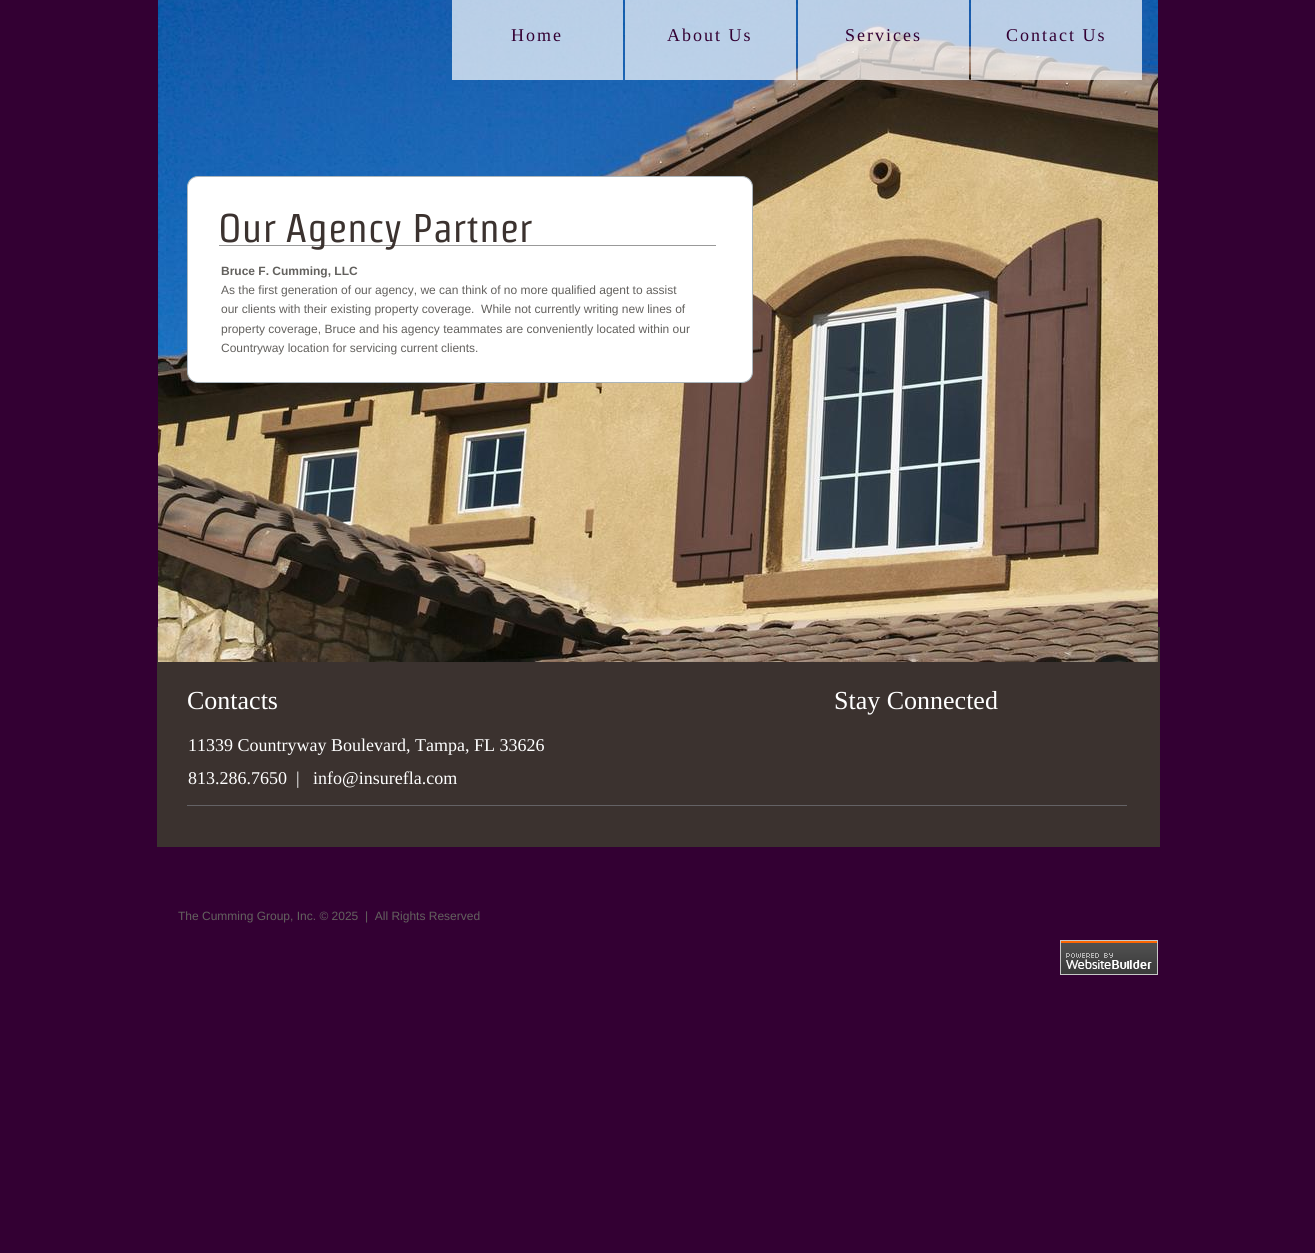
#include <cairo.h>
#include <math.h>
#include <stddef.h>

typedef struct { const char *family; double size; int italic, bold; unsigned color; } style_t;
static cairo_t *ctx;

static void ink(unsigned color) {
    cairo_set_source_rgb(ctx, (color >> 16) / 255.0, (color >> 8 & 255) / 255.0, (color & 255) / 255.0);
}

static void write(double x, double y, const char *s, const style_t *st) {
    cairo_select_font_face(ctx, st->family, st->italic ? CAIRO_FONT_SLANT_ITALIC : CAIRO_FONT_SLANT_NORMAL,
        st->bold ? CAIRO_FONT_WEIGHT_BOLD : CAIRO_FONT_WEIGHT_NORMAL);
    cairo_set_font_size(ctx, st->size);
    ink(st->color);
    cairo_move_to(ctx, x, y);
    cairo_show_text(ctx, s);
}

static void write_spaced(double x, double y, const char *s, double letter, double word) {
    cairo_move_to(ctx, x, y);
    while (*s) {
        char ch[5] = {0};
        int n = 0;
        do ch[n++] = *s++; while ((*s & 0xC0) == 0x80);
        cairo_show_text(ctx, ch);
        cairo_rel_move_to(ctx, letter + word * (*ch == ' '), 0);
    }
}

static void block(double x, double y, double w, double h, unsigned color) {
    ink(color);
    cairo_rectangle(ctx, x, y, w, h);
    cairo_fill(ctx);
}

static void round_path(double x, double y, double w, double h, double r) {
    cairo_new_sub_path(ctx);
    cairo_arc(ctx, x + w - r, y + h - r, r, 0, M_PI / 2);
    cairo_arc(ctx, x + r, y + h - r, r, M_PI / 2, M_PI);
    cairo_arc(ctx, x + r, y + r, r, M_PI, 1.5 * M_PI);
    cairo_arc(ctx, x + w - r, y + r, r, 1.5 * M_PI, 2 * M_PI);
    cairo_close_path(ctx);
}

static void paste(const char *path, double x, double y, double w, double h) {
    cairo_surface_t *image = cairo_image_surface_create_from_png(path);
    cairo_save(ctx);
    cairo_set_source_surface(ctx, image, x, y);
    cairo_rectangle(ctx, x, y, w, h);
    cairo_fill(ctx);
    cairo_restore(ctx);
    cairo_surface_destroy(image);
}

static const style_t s1 = {"Strait", 40, 0, 0, 0x3b322f};
static const style_t s2 = {"Liberation Sans", 12, 0, 1, 0x63615e};
static const style_t s3 = {"Liberation Sans", 12, 0, 0, 0x63615e};
static const style_t s4 = {"Liberation Serif", 26, 0, 0, 0xffffff};
static const style_t s5 = {"Liberation Serif", 18, 0, 0, 0xffffff};

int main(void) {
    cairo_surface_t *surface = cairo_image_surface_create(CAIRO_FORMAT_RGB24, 1315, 1253);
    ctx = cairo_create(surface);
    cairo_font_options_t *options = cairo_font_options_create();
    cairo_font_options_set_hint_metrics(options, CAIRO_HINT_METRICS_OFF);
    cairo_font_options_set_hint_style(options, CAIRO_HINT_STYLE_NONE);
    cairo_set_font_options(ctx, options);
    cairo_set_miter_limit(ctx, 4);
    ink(0x330033);
    cairo_paint(ctx);
    block(157, 627, 1003, 220, 0x3b322f);
    paste("pic1.png", 158, 0, 1000, 662);
    cairo_set_source_rgba(ctx, 1, 1, 1, 0.7);
    cairo_rectangle(ctx, 452, 0, 171, 80);
    cairo_fill(ctx);
    cairo_select_font_face(ctx, "Liberation Serif", CAIRO_FONT_SLANT_NORMAL, CAIRO_FONT_WEIGHT_NORMAL);
    cairo_set_font_size(ctx, 18);
    ink(0x330033);
    write_spaced(511, 41, "Home", 2, 0);
    cairo_set_source_rgba(ctx, 1, 1, 1, 0.7);
    cairo_rectangle(ctx, 625, 0, 171, 80);
    cairo_fill(ctx);
    ink(0x330033);
    write_spaced(667, 41, "About Us", 2, 0);
    cairo_set_source_rgba(ctx, 1, 1, 1, 0.7);
    cairo_rectangle(ctx, 798, 0, 171, 80);
    cairo_fill(ctx);
    ink(0x330033);
    write_spaced(845, 41, "Services", 2, 0);
    cairo_set_source_rgba(ctx, 1, 1, 1, 0.7);
    cairo_rectangle(ctx, 971, 0, 171, 80);
    cairo_fill(ctx);
    ink(0x330033);
    write_spaced(1006, 41, "Contact Us", 2, 0);
    ink(0xffffff);
    round_path(187.5, 176.5, 565, 206, 10.5);
    cairo_fill_preserve(ctx);
    ink(0xa9b4bb);
    cairo_set_line_width(ctx, 1);
    cairo_stroke(ctx);
    block(219, 245, 497, 1, 0x999999);
    write(218, 242, "Our Agency Partner", &s1);
    write(221, 275, "Bruce F. Cumming, LLC", &s2);
    write(221, 294, "As the first generation of our agency, we can think of no more qualified agent to assist", &s3);
    write(221, 313, "our clients with their existing property coverage.  While not currently writing new lines of", &s3);
    write(221, 333, "property coverage, Bruce and his agency teammates are conveniently located within our", &s3);
    write(221, 352, "Countryway location for servicing current clients.", &s3);
    write(187, 709, "Contacts", &s4);
    write(834, 709, "Stay Connected", &s4);
    write(188, 751, "11339 Countryway Boulevard, Tampa, FL 33626", &s5);
    write(188, 784, "813.286.7650  |   info@insurefla.com", &s5);
    block(187, 805, 940, 1, 0x646265);
    write(178, 920, "The Cumming Group, Inc. © 2025  |  All Rights Reserved", &s3);
    paste("pic2.png", 1060, 940, 98, 35);
    cairo_surface_write_to_png(surface, "screenshot.png");
    cairo_font_options_destroy(options);
    cairo_destroy(ctx);
    cairo_surface_destroy(surface);
    return 0;
}
